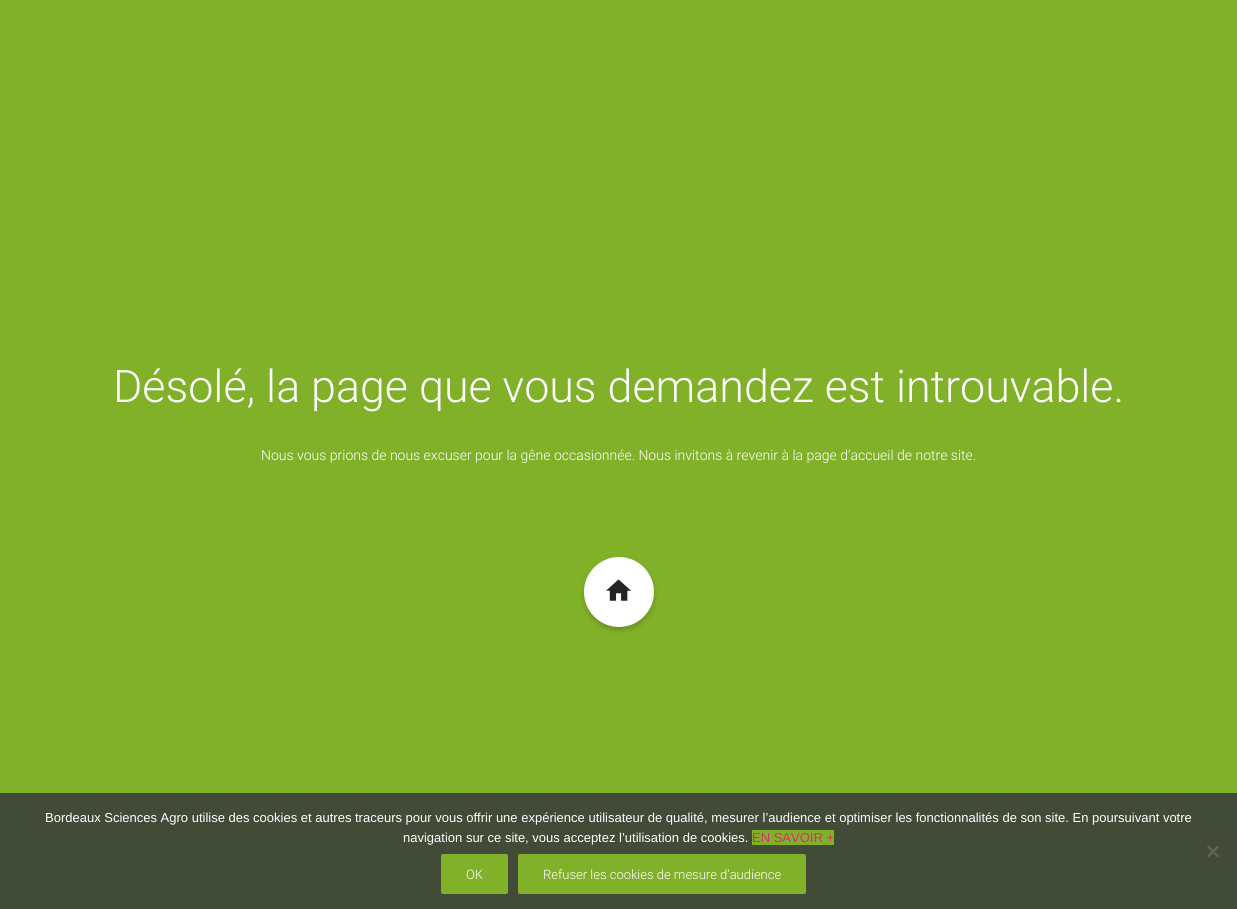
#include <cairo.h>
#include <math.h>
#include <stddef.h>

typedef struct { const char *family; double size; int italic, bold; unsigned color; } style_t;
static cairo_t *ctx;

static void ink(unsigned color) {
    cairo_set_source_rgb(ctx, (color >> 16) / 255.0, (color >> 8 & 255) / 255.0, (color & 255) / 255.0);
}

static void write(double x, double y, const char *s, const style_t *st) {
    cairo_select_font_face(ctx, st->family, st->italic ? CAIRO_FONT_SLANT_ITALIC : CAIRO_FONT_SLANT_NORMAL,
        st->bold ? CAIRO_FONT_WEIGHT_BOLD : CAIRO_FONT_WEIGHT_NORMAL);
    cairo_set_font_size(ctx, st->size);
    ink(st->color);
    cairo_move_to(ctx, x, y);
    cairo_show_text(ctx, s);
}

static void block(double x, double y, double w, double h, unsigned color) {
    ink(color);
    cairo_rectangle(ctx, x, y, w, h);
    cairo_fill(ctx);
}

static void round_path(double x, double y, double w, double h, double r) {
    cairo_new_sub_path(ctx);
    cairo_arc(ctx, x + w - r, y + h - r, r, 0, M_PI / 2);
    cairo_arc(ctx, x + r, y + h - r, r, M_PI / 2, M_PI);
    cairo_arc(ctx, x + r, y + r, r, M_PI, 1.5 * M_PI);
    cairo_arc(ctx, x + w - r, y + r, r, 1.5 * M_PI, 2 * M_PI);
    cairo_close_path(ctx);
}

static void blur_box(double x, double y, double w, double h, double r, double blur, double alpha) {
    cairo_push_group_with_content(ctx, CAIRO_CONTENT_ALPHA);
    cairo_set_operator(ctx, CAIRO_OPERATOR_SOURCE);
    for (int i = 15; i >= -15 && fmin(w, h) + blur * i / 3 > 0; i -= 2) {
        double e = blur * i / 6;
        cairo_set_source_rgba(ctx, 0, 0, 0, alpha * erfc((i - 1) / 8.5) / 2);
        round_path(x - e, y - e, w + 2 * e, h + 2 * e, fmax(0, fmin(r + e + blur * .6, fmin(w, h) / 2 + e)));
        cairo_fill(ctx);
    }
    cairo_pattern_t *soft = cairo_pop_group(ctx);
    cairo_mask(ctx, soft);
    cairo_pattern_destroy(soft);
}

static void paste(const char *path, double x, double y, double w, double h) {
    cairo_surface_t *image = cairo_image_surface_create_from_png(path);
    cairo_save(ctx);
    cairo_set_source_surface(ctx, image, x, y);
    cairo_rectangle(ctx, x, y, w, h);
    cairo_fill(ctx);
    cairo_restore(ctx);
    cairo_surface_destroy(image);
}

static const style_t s1 = {"Roboto Light", 44.8, 0, 0, 0xffffff};
static const style_t s2 = {"Roboto Light", 14, 0, 0, 0xffffff};
static const style_t s3 = {"Liberation Sans", 13, 0, 0, 0xffffff};
static const style_t s4 = {"Liberation Sans", 13, 0, 0, 0xe1277c};
static const style_t s5 = {"Roboto Light", 13, 0, 0, 0xffffff};

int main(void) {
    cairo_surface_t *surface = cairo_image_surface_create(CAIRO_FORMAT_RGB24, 1237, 909);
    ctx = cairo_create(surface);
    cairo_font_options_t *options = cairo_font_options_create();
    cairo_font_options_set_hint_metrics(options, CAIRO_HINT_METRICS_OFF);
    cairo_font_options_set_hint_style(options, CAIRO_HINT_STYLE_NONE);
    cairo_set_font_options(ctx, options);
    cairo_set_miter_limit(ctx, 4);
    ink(0x81b129);
    cairo_paint(ctx);
    block(0, 793, 1237, 116, 0x424b37);
    write(113, 402, "Désolé, la page que vous demandez est introuvable.", &s1);
    write(261, 460, "Nous vous prions de nous excuser pour la gêne occasionnée. Nous invitons à revenir à la page d’accueil de notre site.", &s2);
    ink(0x000000);
    blur_box(584, 560, 70, 70, 35, 2.5, 0.2);
    ink(0xffffff);
    cairo_arc(ctx, 619, 592, 35, 0, 2 * M_PI);
    cairo_fill(ctx);
    paste("pic1.png", 606, 579, 25, 22);
    write(45, 822, "Bordeaux Sciences Agro utilise des cookies et autres traceurs pour vous offrir une expérience utilisateur de qualité, mesurer l’audience et optimiser les fonctionnalités de son site. En poursuivant votre", &s3);
    write(403, 842, "navigation sur ce site, vous acceptez l’utilisation de cookies.", &s3);
    block(752, 830, 82, 15, 0x81b129);
    write(752, 842, "EN SAVOIR +", &s4);
    ink(0x61665b);
    cairo_new_path(ctx);
    cairo_move_to(ctx, 1217.5, 845.5);
    cairo_line_to(ctx, 1219, 847);
    cairo_line_to(ctx, 1208.5, 857.5);
    cairo_line_to(ctx, 1207, 856);
    cairo_close_path(ctx);
    cairo_fill(ctx);
    cairo_new_path(ctx);
    cairo_move_to(ctx, 1207, 847);
    cairo_line_to(ctx, 1208.5, 845.5);
    cairo_line_to(ctx, 1219, 856);
    cairo_line_to(ctx, 1217.5, 857.5);
    cairo_close_path(ctx);
    cairo_fill(ctx);
    ink(0x81b129);
    round_path(441, 854, 67, 40, 2);
    cairo_fill(ctx);
    write(466, 879, "OK", &s5);
    ink(0x81b129);
    round_path(518, 854, 288, 40, 2);
    cairo_fill(ctx);
    write(543, 879, "Refuser les cookies de mesure d’audience", &s5);
    cairo_surface_write_to_png(surface, "screenshot.png");
    cairo_font_options_destroy(options);
    cairo_destroy(ctx);
    cairo_surface_destroy(surface);
    return 0;
}
